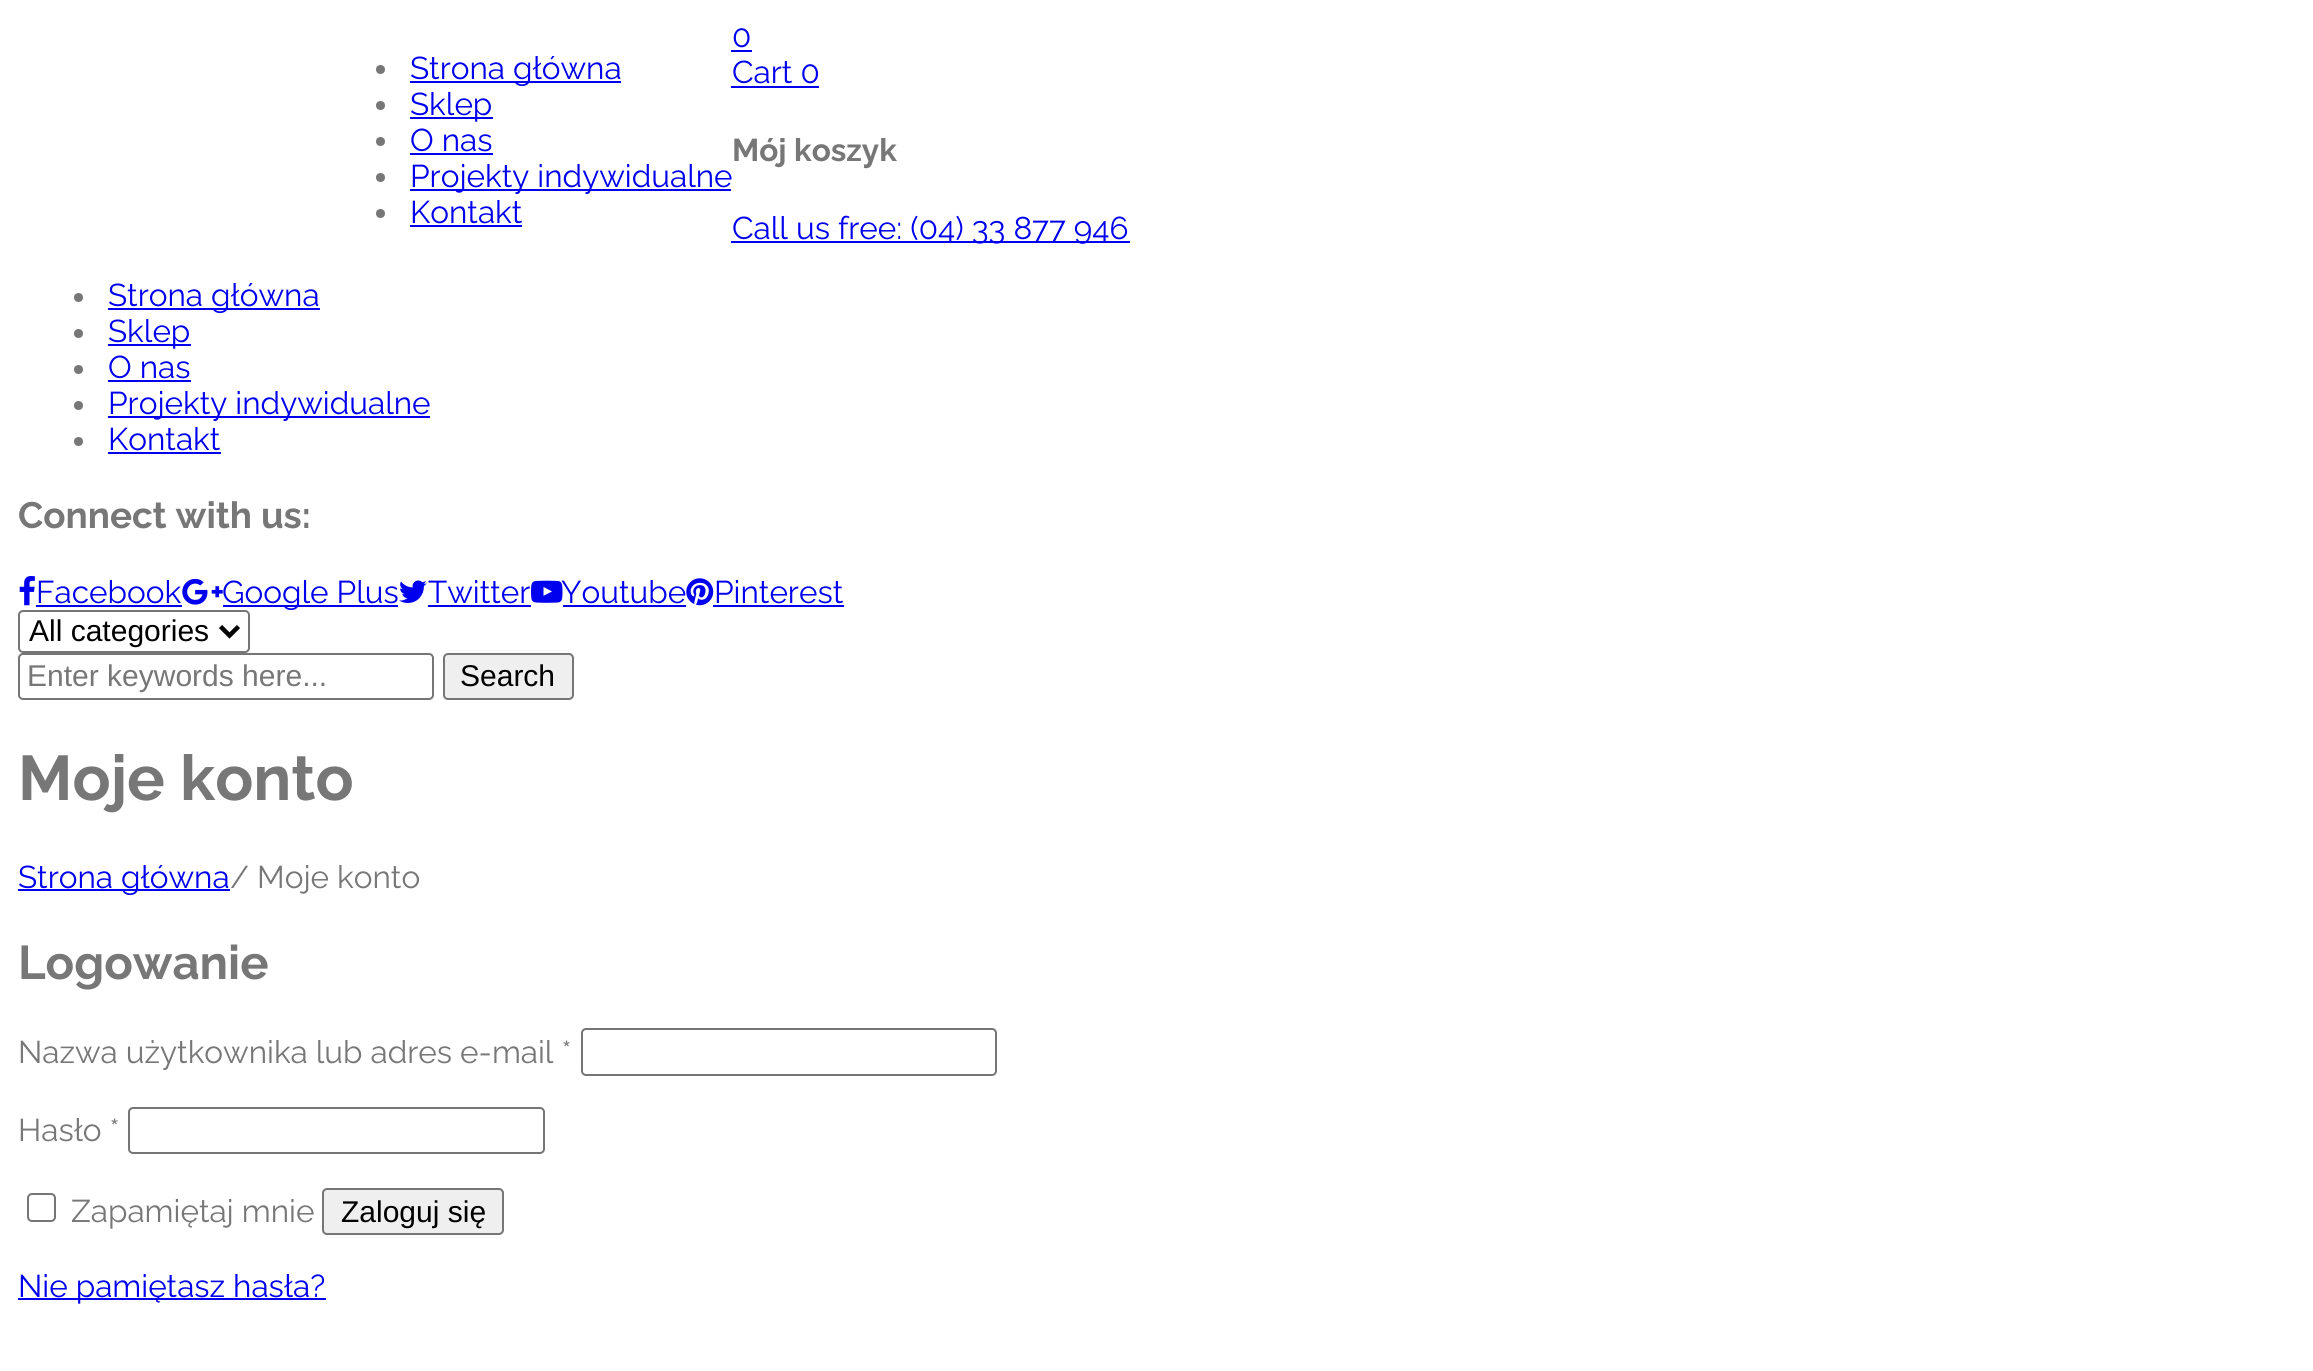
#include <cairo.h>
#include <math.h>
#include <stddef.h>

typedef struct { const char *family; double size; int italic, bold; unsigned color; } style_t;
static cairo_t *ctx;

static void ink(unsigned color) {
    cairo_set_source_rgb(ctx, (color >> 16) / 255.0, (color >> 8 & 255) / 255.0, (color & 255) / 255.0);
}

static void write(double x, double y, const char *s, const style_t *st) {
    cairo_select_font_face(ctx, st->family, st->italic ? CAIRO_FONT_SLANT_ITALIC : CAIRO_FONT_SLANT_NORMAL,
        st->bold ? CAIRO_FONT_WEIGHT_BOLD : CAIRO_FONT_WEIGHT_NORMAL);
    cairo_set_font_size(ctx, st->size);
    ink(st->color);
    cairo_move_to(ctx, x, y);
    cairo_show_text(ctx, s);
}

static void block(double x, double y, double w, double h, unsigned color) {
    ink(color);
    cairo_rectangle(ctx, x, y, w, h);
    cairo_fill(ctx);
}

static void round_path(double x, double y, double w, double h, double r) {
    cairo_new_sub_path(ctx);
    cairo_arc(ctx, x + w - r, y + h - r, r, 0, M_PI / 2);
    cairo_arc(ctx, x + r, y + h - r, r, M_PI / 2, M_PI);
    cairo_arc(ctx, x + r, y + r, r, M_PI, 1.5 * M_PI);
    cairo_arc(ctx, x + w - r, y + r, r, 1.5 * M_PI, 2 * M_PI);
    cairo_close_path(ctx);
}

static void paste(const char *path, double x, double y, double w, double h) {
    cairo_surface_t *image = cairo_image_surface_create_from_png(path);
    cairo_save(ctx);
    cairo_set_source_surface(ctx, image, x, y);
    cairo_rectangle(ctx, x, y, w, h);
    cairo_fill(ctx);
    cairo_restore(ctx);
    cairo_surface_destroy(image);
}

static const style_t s1 = {"Raleway", 31.5, 0, 0, 0x0000ee};
static const style_t s2 = {"Raleway", 31.5, 0, 1, 0x777777};
static const style_t s3 = {"Raleway", 36.75, 0, 1, 0x777777};
static const style_t s4 = {"Liberation Sans", 30, 0, 0, 0x000000};
static const style_t s5 = {"Liberation Sans", 30, 0, 0, 0x777777};
static const style_t s6 = {"Raleway", 63, 0, 1, 0x777777};
static const style_t s7 = {"Raleway", 31.5, 0, 0, 0x777777};
static const style_t s8 = {"Raleway", 47.25, 0, 1, 0x777777};

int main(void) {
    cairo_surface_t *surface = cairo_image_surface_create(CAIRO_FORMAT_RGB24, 2313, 1371);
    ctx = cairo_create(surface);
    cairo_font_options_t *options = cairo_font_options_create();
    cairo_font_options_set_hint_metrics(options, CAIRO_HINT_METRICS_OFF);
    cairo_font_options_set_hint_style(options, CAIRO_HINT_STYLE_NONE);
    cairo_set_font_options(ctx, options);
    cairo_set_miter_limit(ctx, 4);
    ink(0xffffff);
    cairo_paint(ctx);
    write(732, 47, "0", &s1);
    block(731, 50, 21, 2, 0x0000ee);
    write(732, 83, "Cart 0", &s1);
    block(731, 86, 88, 2, 0x0000ee);
    write(732, 161, "Mój koszyk", &s2);
    block(731, 241, 399, 2, 0x0000ee);
    write(732, 239, "Call us free: (04) 33 877 946", &s1);
    ink(0x777777);
    cairo_new_path(ctx);
    cairo_arc(ctx, 78.5, 297.5, 4.5, 0, 2 * M_PI);
    cairo_fill(ctx);
    block(108, 308, 212, 2, 0x0000ee);
    write(108, 306, "Strona główna", &s1);
    ink(0x777777);
    cairo_new_path(ctx);
    cairo_arc(ctx, 78.5, 333.5, 4.5, 0, 2 * M_PI);
    cairo_fill(ctx);
    block(108, 344, 83, 2, 0x0000ee);
    write(108, 342, "Sklep", &s1);
    ink(0x777777);
    cairo_new_path(ctx);
    cairo_arc(ctx, 78.5, 369.5, 4.5, 0, 2 * M_PI);
    cairo_fill(ctx);
    write(108, 378, "O nas", &s1);
    block(108, 380, 83, 2, 0x0000ee);
    ink(0x777777);
    cairo_new_path(ctx);
    cairo_arc(ctx, 78.5, 405.5, 4.5, 0, 2 * M_PI);
    cairo_fill(ctx);
    block(108, 416, 322, 2, 0x0000ee);
    write(108, 414, "Projekty indywidualne", &s1);
    ink(0x777777);
    cairo_new_path(ctx);
    cairo_arc(ctx, 78.5, 441.5, 4.5, 0, 2 * M_PI);
    cairo_fill(ctx);
    write(108, 450, "Kontakt", &s1);
    block(108, 452, 113, 2, 0x0000ee);
    write(18, 528, "Connect with us:", &s3);
    paste("pic1.png", 19, 576, 16, 30);
    write(36, 603, "Facebook", &s1);
    block(36, 605, 146, 2, 0x0000ee);
    paste("pic2.png", 182, 578, 41, 27);
    block(223, 605, 175, 2, 0x0000ee);
    write(222, 603, "Google Plus", &s1);
    paste("pic3.png", 399, 580, 28, 23);
    write(428, 603, "Twitter", &s1);
    block(428, 605, 103, 2, 0x0000ee);
    paste("pic4.png", 531, 580, 32, 23);
    write(561, 603, "Youtube", &s1);
    block(563, 605, 123, 2, 0x0000ee);
    paste("pic5.png", 686, 578, 28, 28);
    write(714, 603, "Pinterest", &s1);
    block(713, 605, 131, 2, 0x0000ee);
    ink(0x777777);
    cairo_new_path(ctx);
    cairo_arc(ctx, 380.5, 69.5, 4.5, 0, 2 * M_PI);
    cairo_fill(ctx);
    block(410, 81, 211, 2, 0x0000ee);
    write(410, 79, "Strona główna", &s1);
    ink(0x777777);
    cairo_new_path(ctx);
    cairo_arc(ctx, 380.5, 105.5, 4.5, 0, 2 * M_PI);
    cairo_fill(ctx);
    block(410, 117, 83, 2, 0x0000ee);
    write(410, 115, "Sklep", &s1);
    ink(0x777777);
    cairo_new_path(ctx);
    cairo_arc(ctx, 380.5, 141.5, 4.5, 0, 2 * M_PI);
    cairo_fill(ctx);
    write(410, 151, "O nas", &s1);
    block(410, 153, 83, 2, 0x0000ee);
    ink(0x777777);
    cairo_new_path(ctx);
    cairo_arc(ctx, 380.5, 177.5, 4.5, 0, 2 * M_PI);
    cairo_fill(ctx);
    block(410, 189, 321, 2, 0x0000ee);
    write(410, 187, "Projekty indywidualne", &s1);
    ink(0x777777);
    cairo_new_path(ctx);
    cairo_arc(ctx, 380.5, 213.5, 4.5, 0, 2 * M_PI);
    cairo_fill(ctx);
    write(410, 223, "Kontakt", &s1);
    block(410, 225, 112, 2, 0x0000ee);
    round_path(19, 611, 230, 41, 4);
    ink(0x767676);
    cairo_stroke(ctx);
    cairo_new_path(ctx);
    cairo_move_to(ctx, 220.5, 626.5);
    cairo_line_to(ctx, 229.5, 635.5);
    cairo_line_to(ctx, 238.5, 626.5);
    ink(0x000000);
    cairo_set_line_width(ctx, 4.5);
    cairo_stroke(ctx);
    write(29, 641, "All categories", &s4);
    round_path(19, 654, 414, 45, 4);
    ink(0x767676);
    cairo_set_line_width(ctx, 2);
    cairo_stroke(ctx);
    write(27, 686, "Enter keywords here...", &s5);
    ink(0xefefef);
    round_path(444, 654, 129, 45, 4);
    cairo_fill_preserve(ctx);
    ink(0x767676);
    cairo_stroke(ctx);
    write(460, 686, "Search", &s4);
    write(18, 800, "Moje konto", &s6);
    block(18, 889, 212, 2, 0x0000ee);
    write(18, 888, "Strona główna", &s1);
    write(230, 888, "/ Moje konto", &s7);
    write(18, 979, "Logowanie", &s8);
    write(18, 1063, "Nazwa użytkownika lub adres e-mail *", &s7);
    round_path(582, 1029, 414, 46, 4);
    ink(0x767676);
    cairo_stroke(ctx);
    write(18, 1141, "Hasło *", &s7);
    round_path(129, 1108, 415, 45, 4);
    ink(0x767676);
    cairo_stroke(ctx);
    round_path(28, 1194, 27, 27, 4);
    cairo_stroke(ctx);
    write(71, 1222, "Zapamiętaj mnie", &s7);
    ink(0xefefef);
    round_path(323, 1189, 180, 45, 4);
    cairo_fill_preserve(ctx);
    ink(0x767676);
    cairo_stroke(ctx);
    write(341, 1222, "Zaloguj się", &s4);
    block(18, 1298, 308, 2, 0x0000ee);
    write(18, 1297, "Nie pamiętasz hasła?", &s1);
    cairo_surface_write_to_png(surface, "screenshot.png");
    cairo_font_options_destroy(options);
    cairo_destroy(ctx);
    cairo_surface_destroy(surface);
    return 0;
}
